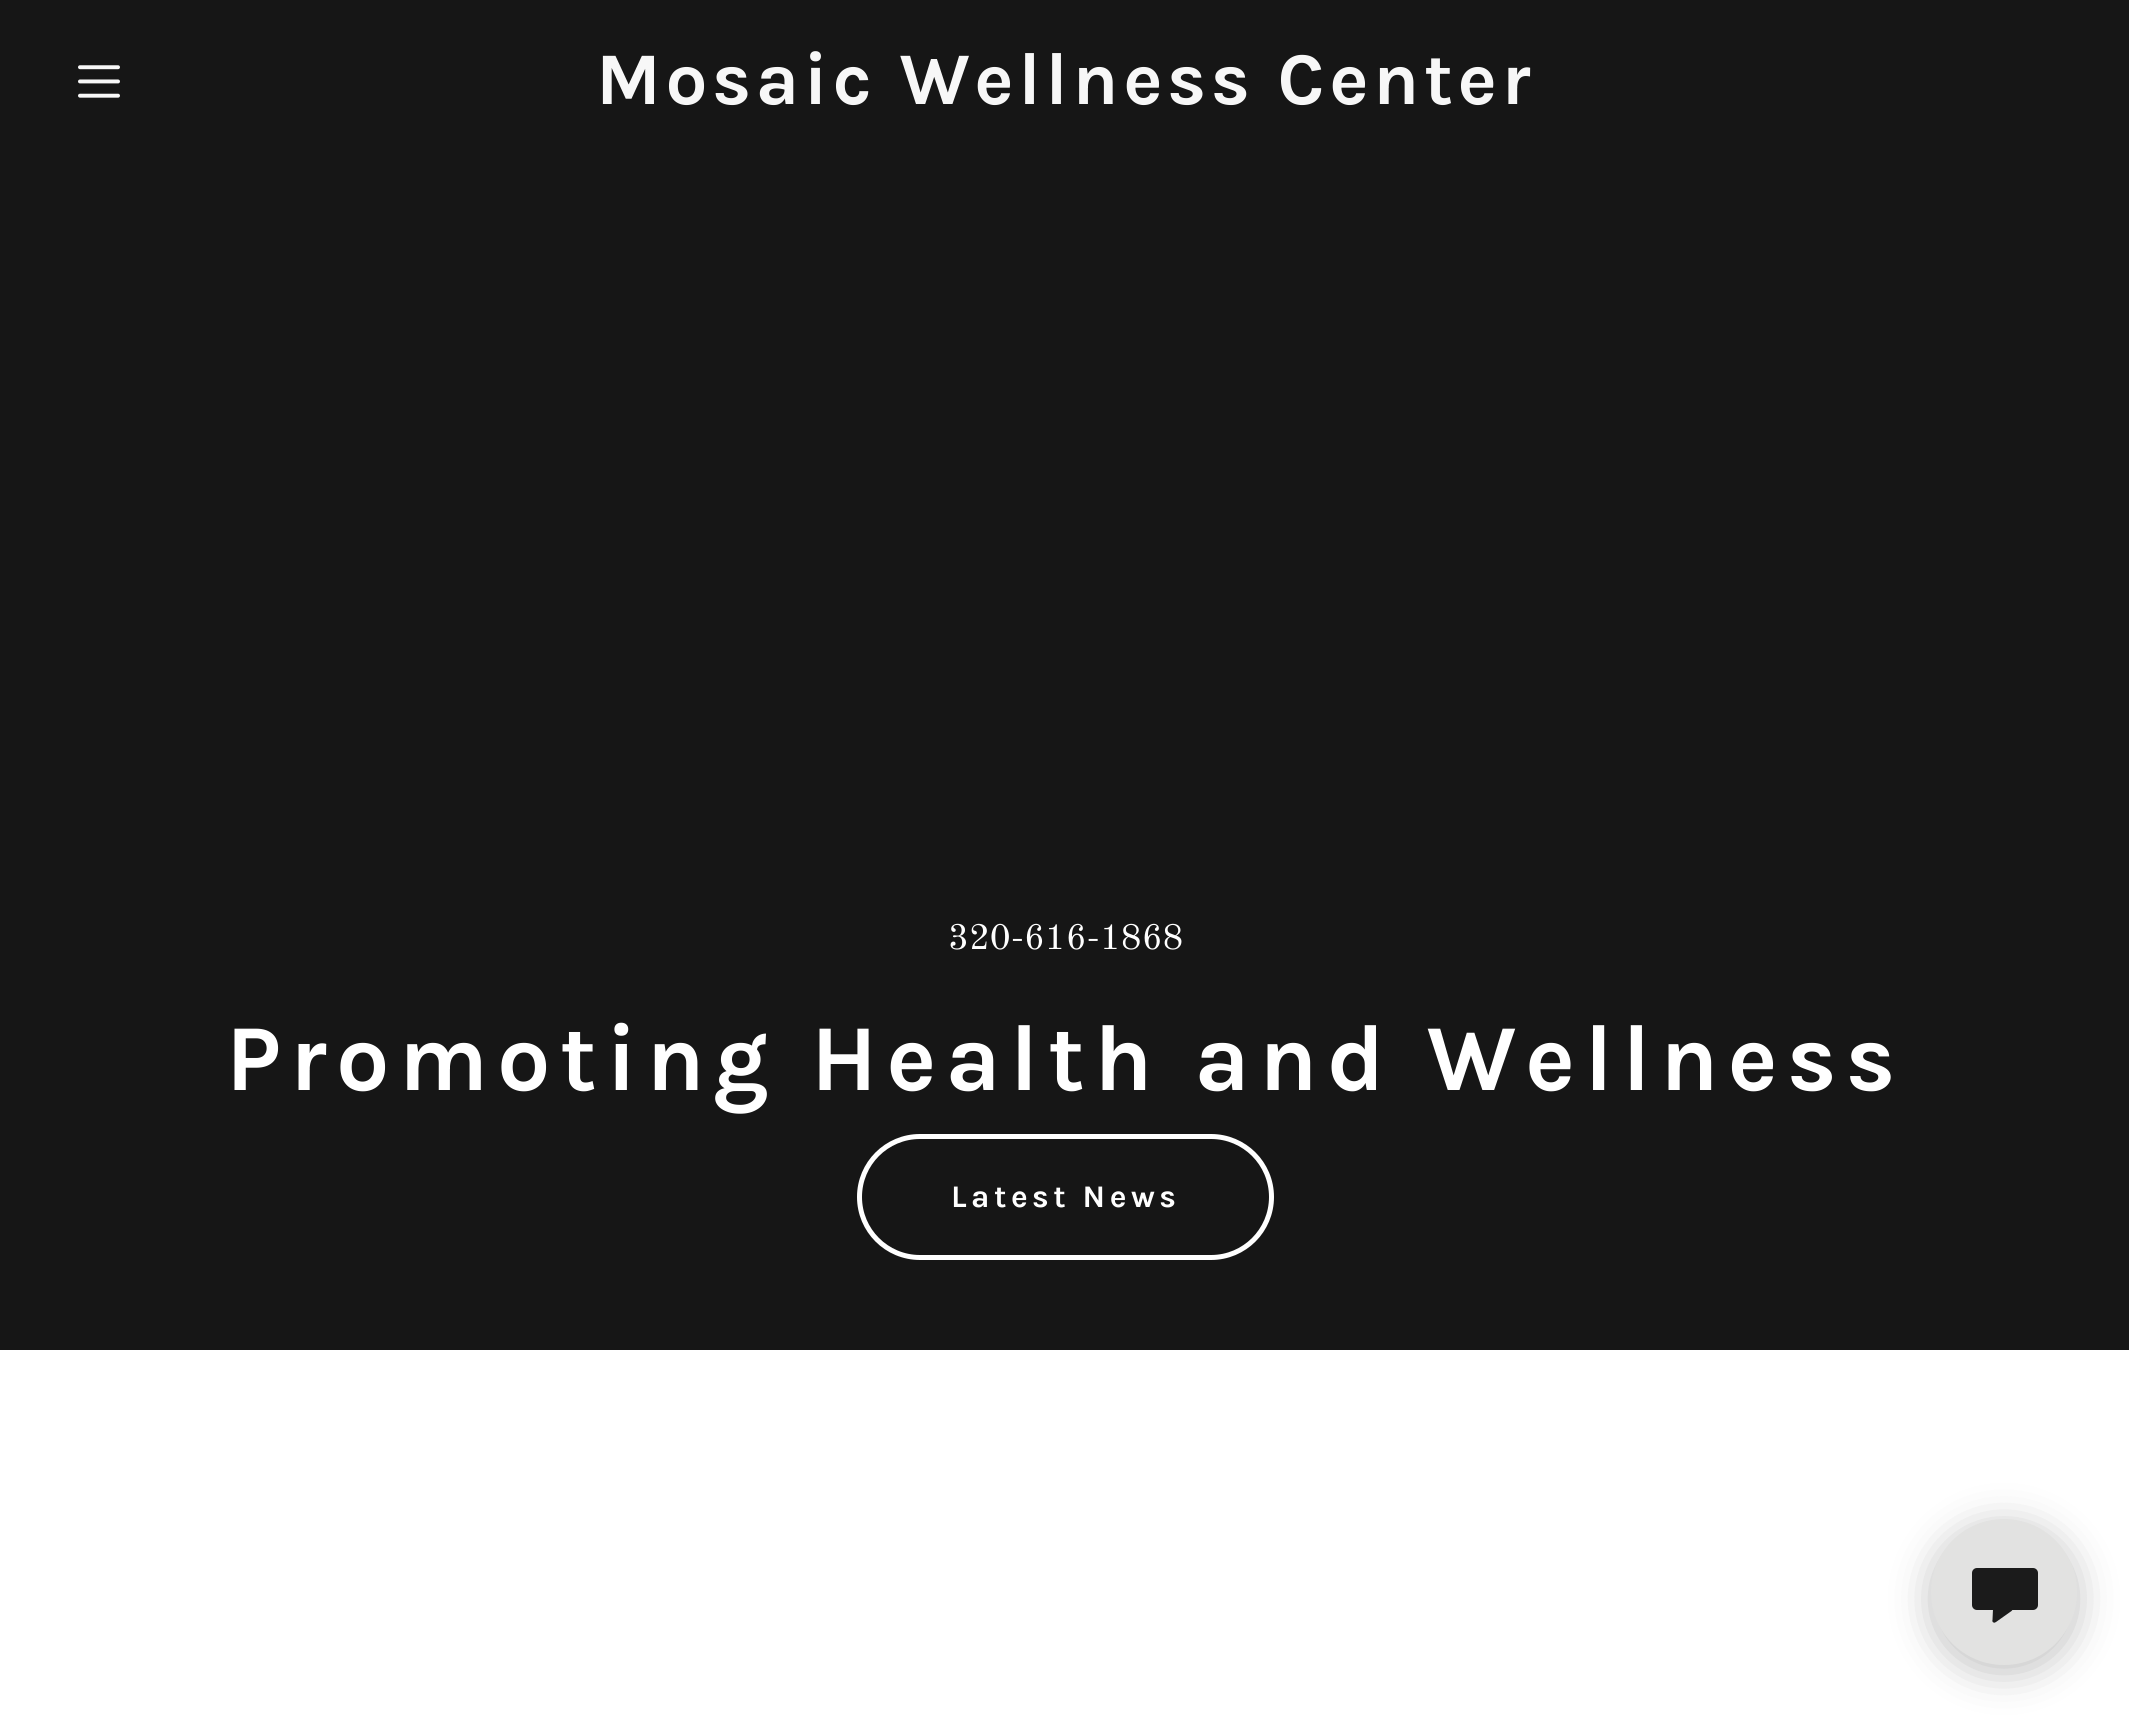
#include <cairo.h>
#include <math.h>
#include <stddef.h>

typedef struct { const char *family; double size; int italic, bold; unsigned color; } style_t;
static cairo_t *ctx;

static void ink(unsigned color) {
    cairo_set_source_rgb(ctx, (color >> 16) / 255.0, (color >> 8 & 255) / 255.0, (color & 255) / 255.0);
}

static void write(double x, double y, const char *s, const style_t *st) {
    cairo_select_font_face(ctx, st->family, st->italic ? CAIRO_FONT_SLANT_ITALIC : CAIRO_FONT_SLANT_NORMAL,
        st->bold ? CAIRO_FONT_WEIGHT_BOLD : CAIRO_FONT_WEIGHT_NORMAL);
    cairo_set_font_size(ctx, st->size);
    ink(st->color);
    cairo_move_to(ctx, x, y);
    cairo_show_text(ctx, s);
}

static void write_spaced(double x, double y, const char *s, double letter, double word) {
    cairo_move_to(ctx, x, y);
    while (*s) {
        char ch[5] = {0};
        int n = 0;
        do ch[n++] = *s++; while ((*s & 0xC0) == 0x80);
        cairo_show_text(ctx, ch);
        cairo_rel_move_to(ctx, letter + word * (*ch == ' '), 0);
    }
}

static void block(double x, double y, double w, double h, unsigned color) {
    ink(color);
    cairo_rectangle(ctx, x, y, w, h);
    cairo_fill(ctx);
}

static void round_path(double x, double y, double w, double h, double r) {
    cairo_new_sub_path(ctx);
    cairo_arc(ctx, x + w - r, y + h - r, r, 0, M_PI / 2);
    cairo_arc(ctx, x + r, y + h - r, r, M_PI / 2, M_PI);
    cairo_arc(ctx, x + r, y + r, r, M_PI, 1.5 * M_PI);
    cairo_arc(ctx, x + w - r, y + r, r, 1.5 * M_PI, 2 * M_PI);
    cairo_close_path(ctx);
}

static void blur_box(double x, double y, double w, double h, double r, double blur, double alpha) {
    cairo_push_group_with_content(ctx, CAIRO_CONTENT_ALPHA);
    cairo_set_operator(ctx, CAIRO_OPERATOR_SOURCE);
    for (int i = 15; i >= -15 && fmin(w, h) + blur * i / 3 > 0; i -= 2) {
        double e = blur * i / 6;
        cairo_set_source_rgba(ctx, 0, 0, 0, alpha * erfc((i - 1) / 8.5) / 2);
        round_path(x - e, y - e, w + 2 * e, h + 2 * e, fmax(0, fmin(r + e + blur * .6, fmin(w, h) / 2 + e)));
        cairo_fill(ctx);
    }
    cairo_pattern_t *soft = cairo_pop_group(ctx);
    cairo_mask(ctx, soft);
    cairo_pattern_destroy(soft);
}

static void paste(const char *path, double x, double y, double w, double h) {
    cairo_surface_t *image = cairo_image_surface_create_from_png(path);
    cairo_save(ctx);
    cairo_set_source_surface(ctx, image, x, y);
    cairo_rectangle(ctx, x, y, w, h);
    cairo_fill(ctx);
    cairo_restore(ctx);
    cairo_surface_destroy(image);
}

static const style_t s1 = {"Old Standard TT", 36, 0, 0, 0xffffff};

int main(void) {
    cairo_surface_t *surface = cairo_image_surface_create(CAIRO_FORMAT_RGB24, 2129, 1718);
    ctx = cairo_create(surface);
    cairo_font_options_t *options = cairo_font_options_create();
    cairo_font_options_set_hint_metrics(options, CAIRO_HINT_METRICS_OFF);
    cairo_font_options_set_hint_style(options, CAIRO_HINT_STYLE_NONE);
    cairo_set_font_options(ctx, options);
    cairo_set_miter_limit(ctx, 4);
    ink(0x161616);
    cairo_paint(ctx);
    paste("pic1.png", 78, 65, 42, 33);
    cairo_select_font_face(ctx, "Karla", CAIRO_FONT_SLANT_NORMAL, CAIRO_FONT_WEIGHT_BOLD);
    cairo_set_font_size(ctx, 74.25);
    ink(0xf7f7f7);
    write_spaced(596, 104, "Mosaic Wellness Center", 4.5, 0);
    write(948, 949, "320-616-1868", &s1);
    cairo_select_font_face(ctx, "Karla", CAIRO_FONT_SLANT_NORMAL, CAIRO_FONT_WEIGHT_BOLD);
    cairo_set_font_size(ctx, 94.5);
    write_spaced(226, 1090, "Promoting Health and Wellness", 9, 0);
    round_path(859.5, 1136.5, 412, 121, 60.5);
    cairo_set_line_width(ctx, 5);
    cairo_stroke(ctx);
    cairo_set_font_size(ctx, 31.5);
    write_spaced(951, 1207, "Latest News", 4.5, 0);
    block(0, 1350, 2129, 368, 0xffffff);
    ink(0x000000);
    blur_box(1931, 1526, 146, 146, 73, 20, 0.25);
    ink(0xe2e2e1);
    cairo_arc(ctx, 2004, 1592, 73, 0, 2 * M_PI);
    cairo_fill(ctx);
    ink(0x1b1b1b);
    round_path(1972, 1568, 66, 42, 5);
    cairo_fill(ctx);
    cairo_new_path(ctx);
    cairo_move_to(ctx, 1992.5, 1620);
    cairo_line_to(ctx, 1993, 1609);
    cairo_curve_to(ctx, 1993, 1607.5, 1994, 1606.5, 1995.5, 1606.5);
    cairo_line_to(ctx, 2010.5, 1606.5);
    cairo_curve_to(ctx, 2012.5, 1606.5, 2013.5, 1609.5, 2011.5, 1611);
    cairo_line_to(ctx, 1996, 1622);
    cairo_curve_to(ctx, 1995, 1622.5, 1994.5, 1623, 1993.5, 1622.5);
    cairo_curve_to(ctx, 1992.5, 1622, 1992, 1621, 1992.5, 1620);
    cairo_close_path(ctx);
    cairo_fill(ctx);
    cairo_surface_write_to_png(surface, "screenshot.png");
    cairo_font_options_destroy(options);
    cairo_destroy(ctx);
    cairo_surface_destroy(surface);
    return 0;
}
